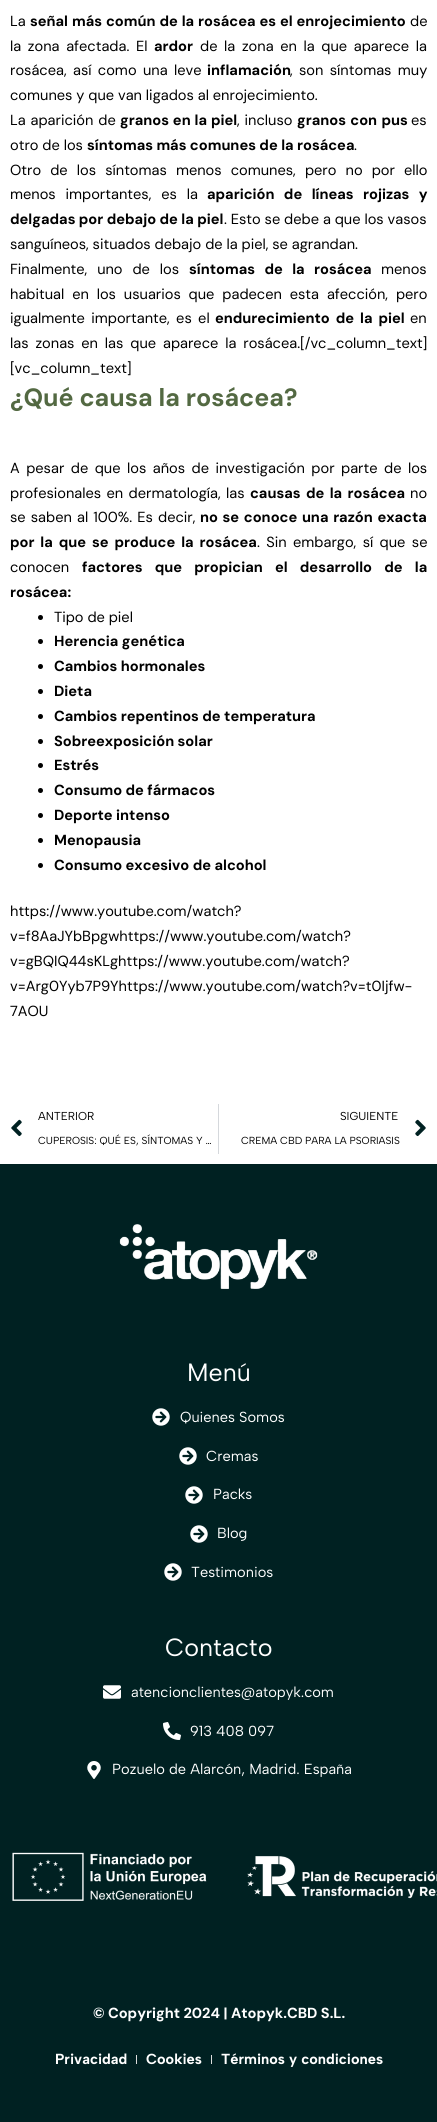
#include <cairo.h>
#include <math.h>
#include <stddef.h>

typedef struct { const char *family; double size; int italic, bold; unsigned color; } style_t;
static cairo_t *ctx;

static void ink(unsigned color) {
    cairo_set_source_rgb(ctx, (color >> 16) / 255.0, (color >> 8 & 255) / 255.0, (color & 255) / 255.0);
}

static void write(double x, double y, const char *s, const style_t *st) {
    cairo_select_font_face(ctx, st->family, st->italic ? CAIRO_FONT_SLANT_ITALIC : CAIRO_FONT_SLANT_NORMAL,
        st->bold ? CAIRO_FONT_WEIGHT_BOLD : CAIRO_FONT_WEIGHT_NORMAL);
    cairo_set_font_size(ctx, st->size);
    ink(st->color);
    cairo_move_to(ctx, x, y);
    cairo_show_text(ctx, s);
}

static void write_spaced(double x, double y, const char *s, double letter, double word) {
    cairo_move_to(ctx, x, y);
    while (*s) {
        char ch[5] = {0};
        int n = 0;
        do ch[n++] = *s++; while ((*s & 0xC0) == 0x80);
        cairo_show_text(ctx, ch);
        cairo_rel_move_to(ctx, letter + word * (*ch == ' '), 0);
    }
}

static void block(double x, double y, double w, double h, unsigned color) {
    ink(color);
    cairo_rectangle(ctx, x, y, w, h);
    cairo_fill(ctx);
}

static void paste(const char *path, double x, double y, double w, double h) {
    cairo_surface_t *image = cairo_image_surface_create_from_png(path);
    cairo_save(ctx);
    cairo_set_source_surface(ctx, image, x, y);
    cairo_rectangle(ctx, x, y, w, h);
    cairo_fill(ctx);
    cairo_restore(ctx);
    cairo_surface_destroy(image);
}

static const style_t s1 = {"DM Sans", 14.6, 0, 0, 0x000000};
static const style_t s2 = {"DM Sans", 14.6, 0, 1, 0x000000};
static const style_t s3 = {"DM Sans", 25, 0, 1, 0x536942};
static const style_t s4 = {"Albert Sans", 11.5, 0, 0, 0x000000};
static const style_t s5 = {"Albert Sans", 10.25, 0, 0, 0x000000};
static const style_t s6 = {"Albert Sans", 25, 0, 0, 0xffffff};
static const style_t s7 = {"Albert Sans", 14.6, 0, 0, 0xffffff};
static const style_t s8 = {"DM Sans", 14.6, 0, 1, 0xffffff};
static const style_t s9 = {"Albert Sans", 14.6, 0, 1, 0xffffff};

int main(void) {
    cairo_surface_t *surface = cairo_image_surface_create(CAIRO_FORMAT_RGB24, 437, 2122);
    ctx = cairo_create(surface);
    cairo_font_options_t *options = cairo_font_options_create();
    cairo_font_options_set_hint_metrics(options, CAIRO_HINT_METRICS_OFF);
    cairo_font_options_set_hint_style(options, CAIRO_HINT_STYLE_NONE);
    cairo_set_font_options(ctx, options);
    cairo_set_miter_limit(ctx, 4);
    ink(0xffffff);
    cairo_paint(ctx);
    write(10, 26, "La", &s1);
    cairo_select_font_face(ctx, "DM Sans", CAIRO_FONT_SLANT_NORMAL, CAIRO_FONT_WEIGHT_BOLD);
    write_spaced(30, 26, "señal más común de la rosácea es el enrojecimiento", 0, 0.5);
    write(410, 26, "de", &s1);
    write_spaced(10, 51, "la zona afectada. El", 0, 2.75);
    write(154, 51, "ardor", &s2);
    cairo_select_font_face(ctx, "DM Sans", CAIRO_FONT_SLANT_NORMAL, CAIRO_FONT_WEIGHT_NORMAL);
    write_spaced(200, 51, "de la zona en la que aparece la", 0, 2.75);
    write_spaced(10, 75, "rosácea, así como una leve", 0, 2.5);
    write(207, 75, "inflamación", &s2);
    cairo_select_font_face(ctx, "DM Sans", CAIRO_FONT_SLANT_NORMAL, CAIRO_FONT_WEIGHT_NORMAL);
    write_spaced(290, 75, ", son síntomas muy", 0, 2.5);
    write(10, 100, "comunes y que van ligados al enrojecimiento.", &s1);
    write_spaced(10, 125, "La aparición de", 0, 1);
    cairo_select_font_face(ctx, "DM Sans", CAIRO_FONT_SLANT_NORMAL, CAIRO_FONT_WEIGHT_BOLD);
    write_spaced(120, 125, "granos en la piel", 0, 0.5);
    cairo_select_font_face(ctx, "DM Sans", CAIRO_FONT_SLANT_NORMAL, CAIRO_FONT_WEIGHT_NORMAL);
    write_spaced(237, 125, ", incluso", 0, 1);
    cairo_select_font_face(ctx, "DM Sans", CAIRO_FONT_SLANT_NORMAL, CAIRO_FONT_WEIGHT_BOLD);
    write_spaced(297, 125, "granos con pus", 0, 1);
    write(411, 125, "es", &s1);
    write(10, 150, "otro de los", &s1);
    write(87, 150, "síntomas más comunes de la rosácea", &s2);
    write(354, 150, ".", &s1);
    write_spaced(10, 175, "Otro de los síntomas menos comunes, pero no por ello", 0, 5.25);
    write_spaced(10, 199, "menos importantes, es la", 0, 6);
    cairo_select_font_face(ctx, "DM Sans", CAIRO_FONT_SLANT_NORMAL, CAIRO_FONT_WEIGHT_BOLD);
    write_spaced(207, 199, "aparición de líneas rojizas y", 0, 6);
    write(10, 224, "delgadas por debajo de la piel", &s2);
    write(224, 224, ". Esto se debe a que los vasos", &s1);
    write(10, 249, "sanguíneos, situados debajo de la piel, se agrandan.", &s1);
    write_spaced(10, 274, "Finalmente, uno de los", 0, 6);
    cairo_select_font_face(ctx, "DM Sans", CAIRO_FONT_SLANT_NORMAL, CAIRO_FONT_WEIGHT_BOLD);
    write_spaced(189, 274, "síntomas de la rosácea", 0, 6);
    write(381, 274, "menos", &s1);
    write_spaced(10, 299, "habitual en los usuarios que padecen esta afección, pero", 0, 4);
    write_spaced(10, 323, "igualmente importante, es el", 0, 2.5);
    cairo_select_font_face(ctx, "DM Sans", CAIRO_FONT_SLANT_NORMAL, CAIRO_FONT_WEIGHT_BOLD);
    write_spaced(215, 323, "endurecimiento de la piel", 0, 2.5);
    write(410, 323, "en", &s1);
    write_spaced(10, 348, "las zonas en las que aparece la rosácea.[/vc_column_text]", 0, 3);
    write(10, 373, "[vc_column_text]", &s1);
    write(10, 406, "¿Qué causa la rosácea?", &s3);
    cairo_select_font_face(ctx, "DM Sans", CAIRO_FONT_SLANT_NORMAL, CAIRO_FONT_WEIGHT_NORMAL);
    cairo_set_font_size(ctx, 14.6);
    ink(0x000000);
    write_spaced(10, 473, "A pesar de que los años de investigación por parte de los", 0, 2.6);
    write_spaced(10, 498, "profesionales en dermatología, las", 0, 1.5);
    cairo_select_font_face(ctx, "DM Sans", CAIRO_FONT_SLANT_NORMAL, CAIRO_FONT_WEIGHT_BOLD);
    write_spaced(250, 498, "causas de la rosácea", 0, 2);
    write(410, 498, "no", &s1);
    write_spaced(10, 522, "se saben al 100%. Es decir,", 0, 1.25);
    cairo_select_font_face(ctx, "DM Sans", CAIRO_FONT_SLANT_NORMAL, CAIRO_FONT_WEIGHT_BOLD);
    write_spaced(200, 522, "no se conoce una razón exacta", 0, 1.25);
    write_spaced(10, 547, "por la que se produce la rosácea", 0, 2.5);
    cairo_select_font_face(ctx, "DM Sans", CAIRO_FONT_SLANT_NORMAL, CAIRO_FONT_WEIGHT_NORMAL);
    write_spaced(257, 547, ". Sin embargo, sí que se", 0, 2.5);
    write(10, 572, "conocen", &s1);
    cairo_select_font_face(ctx, "DM Sans", CAIRO_FONT_SLANT_NORMAL, CAIRO_FONT_WEIGHT_BOLD);
    write_spaced(82, 572, "factores que propician el desarrollo de la", 0, 8.75);
    write(10, 597, "rosácea:", &s2);
    cairo_new_path(ctx);
    cairo_arc(ctx, 40.5, 617.5, 2.5, 0, 2 * M_PI);
    cairo_fill(ctx);
    write(54, 622, "Tipo de piel", &s1);
    cairo_new_path(ctx);
    cairo_arc(ctx, 40.5, 641.5, 2.5, 0, 2 * M_PI);
    cairo_fill(ctx);
    write(54, 646, "Herencia genética", &s2);
    cairo_new_path(ctx);
    cairo_arc(ctx, 40.5, 666.5, 2.5, 0, 2 * M_PI);
    cairo_fill(ctx);
    write(54, 671, "Cambios hormonales", &s2);
    cairo_new_path(ctx);
    cairo_arc(ctx, 40.5, 691.5, 2.5, 0, 2 * M_PI);
    cairo_fill(ctx);
    write(54, 696, "Dieta", &s2);
    cairo_new_path(ctx);
    cairo_arc(ctx, 40.5, 716.5, 2.5, 0, 2 * M_PI);
    cairo_fill(ctx);
    write(54, 721, "Cambios repentinos de temperatura", &s2);
    cairo_new_path(ctx);
    cairo_arc(ctx, 40.5, 741.5, 2.5, 0, 2 * M_PI);
    cairo_fill(ctx);
    write(54, 746, "Sobreexposición solar", &s2);
    cairo_new_path(ctx);
    cairo_arc(ctx, 40.5, 765.5, 2.5, 0, 2 * M_PI);
    cairo_fill(ctx);
    write(54, 770, "Estrés", &s2);
    cairo_new_path(ctx);
    cairo_arc(ctx, 40.5, 790.5, 2.5, 0, 2 * M_PI);
    cairo_fill(ctx);
    write(54, 795, "Consumo de fármacos", &s2);
    cairo_new_path(ctx);
    cairo_arc(ctx, 40.5, 815.5, 2.5, 0, 2 * M_PI);
    cairo_fill(ctx);
    write(54, 820, "Deporte intenso", &s2);
    cairo_new_path(ctx);
    cairo_arc(ctx, 40.5, 840.5, 2.5, 0, 2 * M_PI);
    cairo_fill(ctx);
    write(54, 845, "Menopausia", &s2);
    cairo_new_path(ctx);
    cairo_arc(ctx, 40.5, 865.5, 2.5, 0, 2 * M_PI);
    cairo_fill(ctx);
    write(54, 870, "Consumo excesivo de alcohol", &s2);
    write(10, 916, "https://www.youtube.com/watch?", &s1);
    write(10, 941, "v=f8AaJYbBpgwhttps://www.youtube.com/watch?", &s1);
    write(10, 966, "v=gBQIQ44sKLghttps://www.youtube.com/watch?", &s1);
    write(10, 991, "v=Arg0Yyb7P9Yhttps://www.youtube.com/watch?v=t0Ijfw-", &s1);
    write(10, 1016, "7AOU", &s1);
    paste("pic1.png", 11, 1119, 11, 18);
    write(38, 1120, "ANTERIOR", &s4);
    write(38, 1144, "CUPEROSIS: QUÉ ES, SÍNTOMAS Y …", &s5);
    block(218, 1104, 1, 50, 0xd5d8dc);
    write(340, 1120, "SIGUIENTE", &s4);
    write(241, 1144, "CREMA CBD PARA LA PSORIASIS", &s5);
    paste("pic2.png", 415, 1119, 11, 18);
    block(0, 1164, 437, 958, 0x002122);
    paste("pic3.png", 119, 1224, 199, 65);
    write(187, 1381, "Menú", &s6);
    paste("pic4.png", 152, 1408, 18, 18);
    write(180, 1422, "Quienes Somos", &s7);
    paste("pic4.png", 179, 1447, 18, 18);
    write(206, 1461, "Cremas", &s7);
    paste("pic4.png", 185, 1486, 18, 18);
    write(213, 1499, "Packs", &s7);
    paste("pic4.png", 190, 1525, 18, 18);
    write(217, 1538, "Blog", &s7);
    paste("pic4.png", 164, 1563, 18, 18);
    write(191, 1577, "Testimonios", &s7);
    write(165, 1656, "Contacto", &s6);
    paste("pic5.png", 103, 1685, 18, 14);
    write(131, 1697, "atencionclientes@atopyk.com", &s7);
    paste("pic6.png", 163, 1722, 18, 18);
    write(190, 1736, "913 408 097", &s7);
    paste("pic7.png", 87, 1761, 14, 18);
    write(112, 1774, "Pozuelo de Alarcón, Madrid. España", &s7);
    paste("pic8.png", 12, 1852, 425, 49);
    write(93, 2018, "© Copyright 2024 | Atopyk.CBD S.L.", &s8);
    write(55, 2064, "Privacidad", &s9);
    block(136, 2055, 1, 9, 0xdddddd);
    write(146, 2064, "Cookies", &s9);
    block(211, 2055, 1, 9, 0xdddddd);
    write(221, 2064, "Términos y condiciones", &s9);
    cairo_surface_write_to_png(surface, "screenshot.png");
    cairo_font_options_destroy(options);
    cairo_destroy(ctx);
    cairo_surface_destroy(surface);
    return 0;
}
